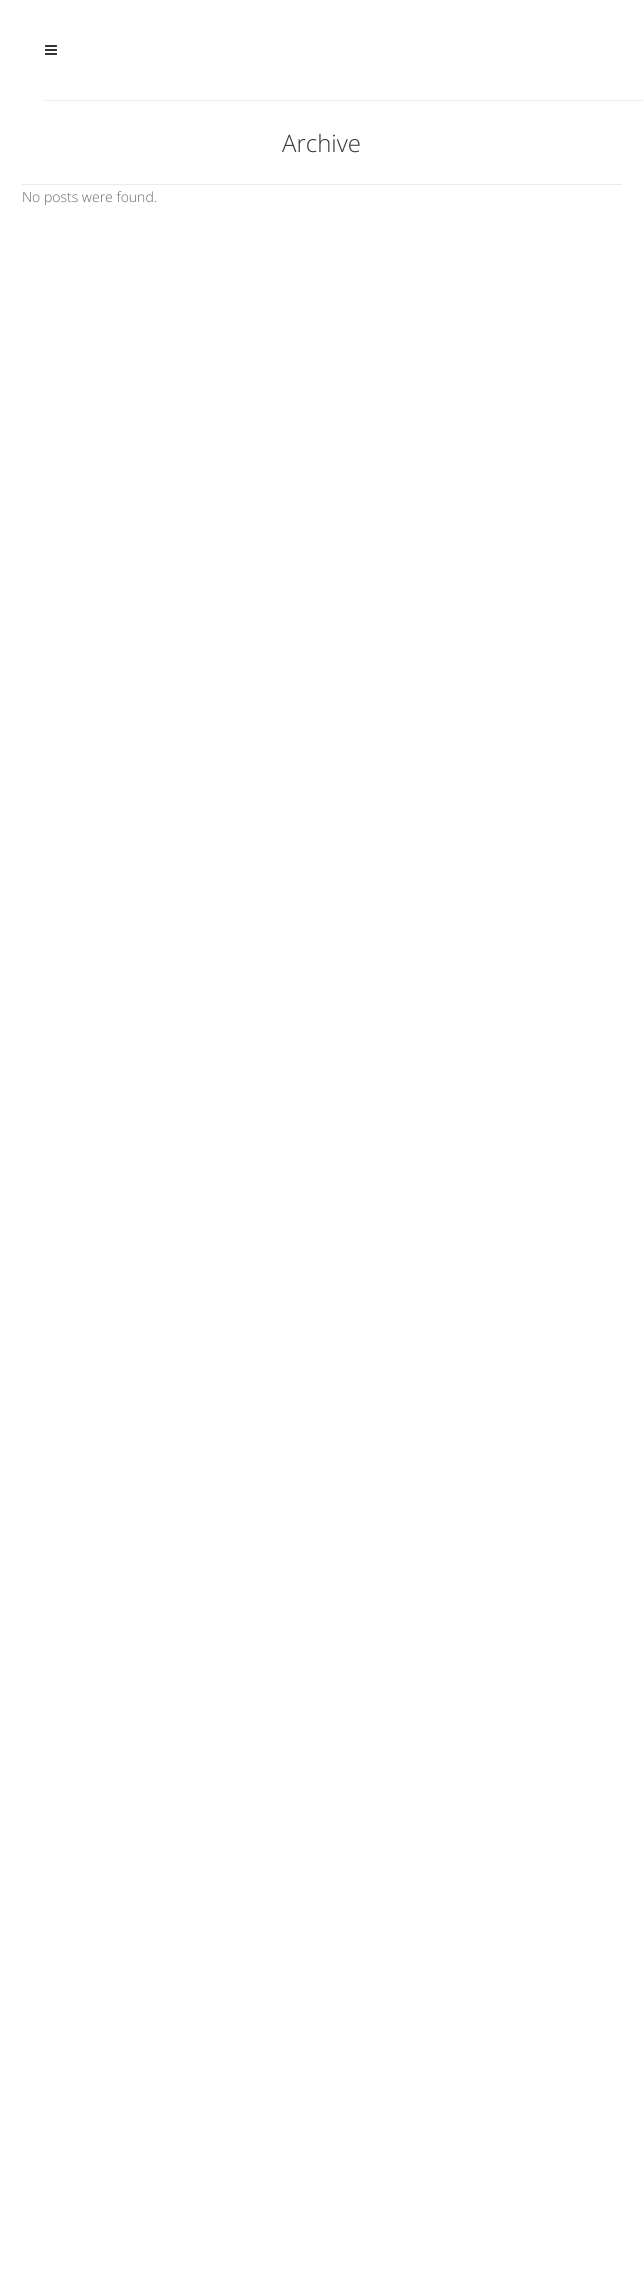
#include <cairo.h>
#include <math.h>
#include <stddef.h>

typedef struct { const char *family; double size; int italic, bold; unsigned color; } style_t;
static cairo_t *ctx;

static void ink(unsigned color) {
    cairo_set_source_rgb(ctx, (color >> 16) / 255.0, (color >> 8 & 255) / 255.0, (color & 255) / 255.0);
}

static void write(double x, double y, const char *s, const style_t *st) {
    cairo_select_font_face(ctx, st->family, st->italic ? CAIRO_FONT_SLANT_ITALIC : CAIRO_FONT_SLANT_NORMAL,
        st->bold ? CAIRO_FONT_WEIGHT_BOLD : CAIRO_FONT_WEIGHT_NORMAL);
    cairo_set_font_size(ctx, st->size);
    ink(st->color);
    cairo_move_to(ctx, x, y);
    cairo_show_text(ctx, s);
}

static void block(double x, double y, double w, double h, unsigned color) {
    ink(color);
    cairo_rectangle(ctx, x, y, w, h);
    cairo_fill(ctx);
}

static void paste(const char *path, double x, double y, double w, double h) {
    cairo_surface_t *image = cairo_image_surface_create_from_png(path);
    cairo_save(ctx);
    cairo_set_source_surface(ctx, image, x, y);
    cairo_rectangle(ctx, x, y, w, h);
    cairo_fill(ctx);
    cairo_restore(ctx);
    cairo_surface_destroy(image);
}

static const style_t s1 = {"Open Sans Light", 24, 0, 0, 0x333333};
static const style_t s2 = {"Open Sans Light", 14, 0, 0, 0x666666};

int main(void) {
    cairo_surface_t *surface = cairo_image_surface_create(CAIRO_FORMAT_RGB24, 643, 2283);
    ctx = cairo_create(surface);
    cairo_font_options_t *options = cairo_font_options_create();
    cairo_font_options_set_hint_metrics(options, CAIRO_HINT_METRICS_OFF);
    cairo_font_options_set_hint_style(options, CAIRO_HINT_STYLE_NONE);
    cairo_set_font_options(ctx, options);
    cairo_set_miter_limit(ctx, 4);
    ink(0xffffff);
    cairo_paint(ctx);
    block(45, 100, 598, 1, 0xeaeaea);
    paste("pic1.png", 45, 45, 12, 10);
    write(282, 152, "Archive", &s1);
    block(22, 184, 600, 1, 0xeaeaea);
    write(22, 202, "No posts were found.", &s2);
    cairo_surface_write_to_png(surface, "screenshot.png");
    cairo_font_options_destroy(options);
    cairo_destroy(ctx);
    cairo_surface_destroy(surface);
    return 0;
}
